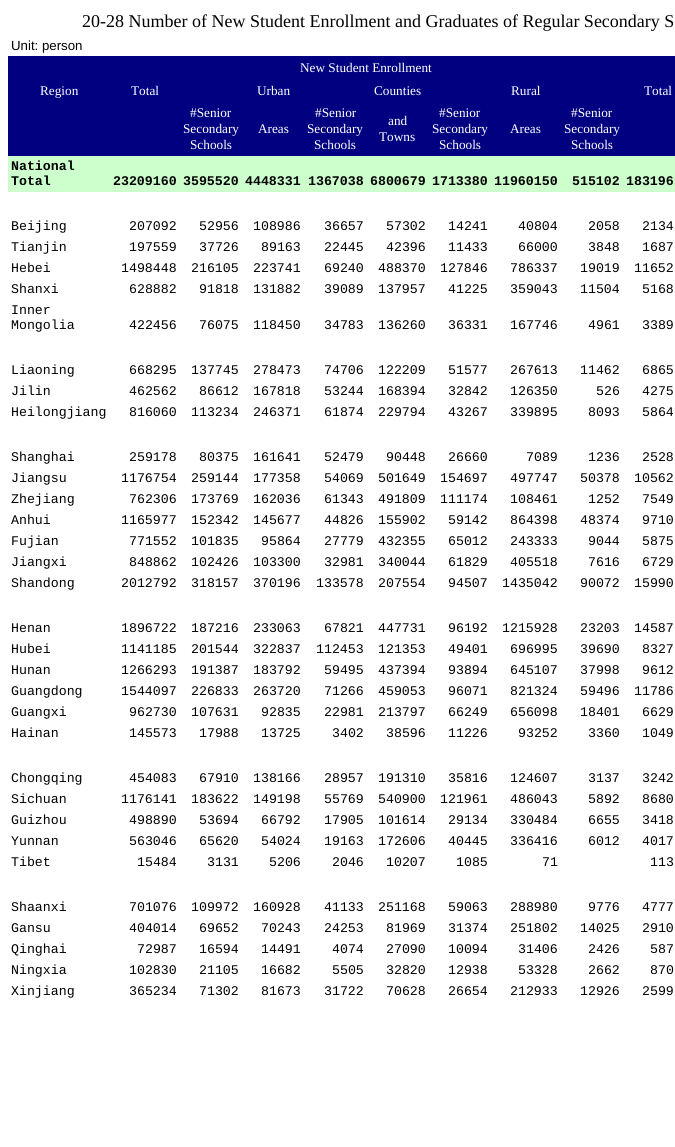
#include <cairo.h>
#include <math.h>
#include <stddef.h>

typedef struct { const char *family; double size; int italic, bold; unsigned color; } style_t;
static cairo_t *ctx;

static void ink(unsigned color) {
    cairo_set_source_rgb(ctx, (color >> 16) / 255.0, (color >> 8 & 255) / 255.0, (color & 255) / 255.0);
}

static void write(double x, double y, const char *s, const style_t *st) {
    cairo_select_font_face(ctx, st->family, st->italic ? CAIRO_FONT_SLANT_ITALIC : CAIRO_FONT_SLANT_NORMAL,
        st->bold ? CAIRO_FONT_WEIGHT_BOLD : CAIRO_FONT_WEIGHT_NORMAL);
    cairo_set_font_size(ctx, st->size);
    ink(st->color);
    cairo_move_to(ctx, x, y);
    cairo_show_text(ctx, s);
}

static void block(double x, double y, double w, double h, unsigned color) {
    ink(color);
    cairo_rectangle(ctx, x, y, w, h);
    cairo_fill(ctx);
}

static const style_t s1 = {"Liberation Serif", 18, 0, 0, 0x000000};
static const style_t s2 = {"Liberation Sans", 13.25, 0, 0, 0x000000};
static const style_t s3 = {"Liberation Serif", 13.25, 0, 0, 0xffffff};
static const style_t s4 = {"Liberation Mono", 13.25, 0, 1, 0x000000};
static const style_t s5 = {"Liberation Mono", 13.25, 0, 0, 0x000000};

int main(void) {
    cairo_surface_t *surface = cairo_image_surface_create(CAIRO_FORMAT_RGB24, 675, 1147);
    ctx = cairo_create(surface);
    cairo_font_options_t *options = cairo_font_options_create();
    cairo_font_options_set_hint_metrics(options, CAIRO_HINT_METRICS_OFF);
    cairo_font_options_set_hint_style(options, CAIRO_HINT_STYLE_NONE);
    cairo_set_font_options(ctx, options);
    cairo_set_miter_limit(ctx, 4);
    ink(0xffffff);
    cairo_paint(ctx);
    write(82, 27, "20-28 Number of New Student Enrollment and Graduates of Regular Secondary S", &s1);
    write(11, 50, "Unit: person", &s2);
    block(8, 56, 667, 24, 0x000080);
    write(300, 72, "New Student Enrollment", &s3);
    block(8, 80, 667, 22, 0x000080);
    write(40, 95, "Region", &s3);
    write(131, 95, "Total", &s3);
    write(257, 95, "Urban", &s3);
    write(374, 95, "Counties", &s3);
    write(511, 95, "Rural", &s3);
    write(644, 95, "Total", &s3);
    block(8, 102, 667, 54, 0x000080);
    write(190, 117, "#Senior", &s3);
    write(183, 133, "Secondary", &s3);
    write(190, 149, "Schools", &s3);
    write(258, 133, "Areas", &s3);
    write(315, 117, "#Senior", &s3);
    write(307, 133, "Secondary", &s3);
    write(314, 149, "Schools", &s3);
    write(388, 125, "and", &s3);
    write(379, 141, "Towns", &s3);
    write(439, 117, "#Senior", &s3);
    write(432, 133, "Secondary", &s3);
    write(439, 149, "Schools", &s3);
    write(510, 133, "Areas", &s3);
    write(571, 117, "#Senior", &s3);
    write(564, 133, "Secondary", &s3);
    write(571, 149, "Schools", &s3);
    block(8, 156, 667, 36, 0xccffcc);
    write(11, 170, "National", &s4);
    write(11, 185, "Total", &s4);
    write(113, 185, "23209160", &s4);
    write(183, 185, "3595520", &s4);
    write(245, 185, "4448331", &s4);
    write(308, 185, "1367038", &s4);
    write(370, 185, "6800679", &s4);
    write(432, 185, "1713380", &s4);
    write(494, 185, "11960150", &s4);
    write(572, 185, "515102", &s4);
    write(626, 185, "183196", &s4);
    write(11, 230, "Beijing", &s5);
    write(129, 230, "207092", &s5);
    write(199, 230, "52956", &s5);
    write(253, 230, "108986", &s5);
    write(324, 230, "36657", &s5);
    write(386, 230, "57302", &s5);
    write(448, 230, "14241", &s5);
    write(518, 230, "40804", &s5);
    write(588, 230, "2058", &s5);
    write(642, 230, "2134", &s5);
    write(11, 251, "Tianjin", &s5);
    write(129, 251, "197559", &s5);
    write(199, 251, "37726", &s5);
    write(261, 251, "89163", &s5);
    write(324, 251, "22445", &s5);
    write(386, 251, "42396", &s5);
    write(448, 251, "11433", &s5);
    write(518, 251, "66000", &s5);
    write(588, 251, "3848", &s5);
    write(642, 251, "1687", &s5);
    write(11, 272, "Hebei", &s5);
    write(121, 272, "1498448", &s5);
    write(191, 272, "216105", &s5);
    write(253, 272, "223741", &s5);
    write(324, 272, "69240", &s5);
    write(378, 272, "488370", &s5);
    write(440, 272, "127846", &s5);
    write(510, 272, "786337", &s5);
    write(580, 272, "19019", &s5);
    write(634, 272, "11652", &s5);
    write(11, 293, "Shanxi", &s5);
    write(129, 293, "628882", &s5);
    write(199, 293, "91818", &s5);
    write(253, 293, "131882", &s5);
    write(324, 293, "39089", &s5);
    write(378, 293, "137957", &s5);
    write(448, 293, "41225", &s5);
    write(510, 293, "359043", &s5);
    write(580, 293, "11504", &s5);
    write(642, 293, "5168", &s5);
    write(11, 314, "Inner", &s5);
    write(11, 329, "Mongolia", &s5);
    write(129, 329, "422456", &s5);
    write(199, 329, "76075", &s5);
    write(253, 329, "118450", &s5);
    write(324, 329, "34783", &s5);
    write(378, 329, "136260", &s5);
    write(448, 329, "36331", &s5);
    write(510, 329, "167746", &s5);
    write(588, 329, "4961", &s5);
    write(642, 329, "3389", &s5);
    write(11, 374, "Liaoning", &s5);
    write(129, 374, "668295", &s5);
    write(191, 374, "137745", &s5);
    write(253, 374, "278473", &s5);
    write(324, 374, "74706", &s5);
    write(378, 374, "122209", &s5);
    write(448, 374, "51577", &s5);
    write(510, 374, "267613", &s5);
    write(580, 374, "11462", &s5);
    write(642, 374, "6865", &s5);
    write(11, 395, "Jilin", &s5);
    write(129, 395, "462562", &s5);
    write(199, 395, "86612", &s5);
    write(253, 395, "167818", &s5);
    write(324, 395, "53244", &s5);
    write(378, 395, "168394", &s5);
    write(448, 395, "32842", &s5);
    write(510, 395, "126350", &s5);
    write(596, 395, "526", &s5);
    write(642, 395, "4275", &s5);
    write(11, 416, "Heilongjiang", &s5);
    write(129, 416, "816060", &s5);
    write(191, 416, "113234", &s5);
    write(253, 416, "246371", &s5);
    write(324, 416, "61874", &s5);
    write(378, 416, "229794", &s5);
    write(448, 416, "43267", &s5);
    write(510, 416, "339895", &s5);
    write(588, 416, "8093", &s5);
    write(642, 416, "5864", &s5);
    write(11, 461, "Shanghai", &s5);
    write(129, 461, "259178", &s5);
    write(199, 461, "80375", &s5);
    write(253, 461, "161641", &s5);
    write(324, 461, "52479", &s5);
    write(386, 461, "90448", &s5);
    write(448, 461, "26660", &s5);
    write(526, 461, "7089", &s5);
    write(588, 461, "1236", &s5);
    write(642, 461, "2528", &s5);
    write(11, 482, "Jiangsu", &s5);
    write(121, 482, "1176754", &s5);
    write(191, 482, "259144", &s5);
    write(253, 482, "177358", &s5);
    write(324, 482, "54069", &s5);
    write(378, 482, "501649", &s5);
    write(440, 482, "154697", &s5);
    write(510, 482, "497747", &s5);
    write(580, 482, "50378", &s5);
    write(634, 482, "10562", &s5);
    write(11, 503, "Zhejiang", &s5);
    write(129, 503, "762306", &s5);
    write(191, 503, "173769", &s5);
    write(253, 503, "162036", &s5);
    write(324, 503, "61343", &s5);
    write(378, 503, "491809", &s5);
    write(440, 503, "111174", &s5);
    write(510, 503, "108461", &s5);
    write(588, 503, "1252", &s5);
    write(642, 503, "7549", &s5);
    write(11, 524, "Anhui", &s5);
    write(121, 524, "1165977", &s5);
    write(191, 524, "152342", &s5);
    write(253, 524, "145677", &s5);
    write(324, 524, "44826", &s5);
    write(378, 524, "155902", &s5);
    write(448, 524, "59142", &s5);
    write(510, 524, "864398", &s5);
    write(580, 524, "48374", &s5);
    write(642, 524, "9710", &s5);
    write(11, 545, "Fujian", &s5);
    write(129, 545, "771552", &s5);
    write(191, 545, "101835", &s5);
    write(261, 545, "95864", &s5);
    write(324, 545, "27779", &s5);
    write(378, 545, "432355", &s5);
    write(448, 545, "65012", &s5);
    write(510, 545, "243333", &s5);
    write(588, 545, "9044", &s5);
    write(642, 545, "5875", &s5);
    write(11, 566, "Jiangxi", &s5);
    write(129, 566, "848862", &s5);
    write(191, 566, "102426", &s5);
    write(253, 566, "103300", &s5);
    write(324, 566, "32981", &s5);
    write(378, 566, "340044", &s5);
    write(448, 566, "61829", &s5);
    write(510, 566, "405518", &s5);
    write(588, 566, "7616", &s5);
    write(642, 566, "6729", &s5);
    write(11, 587, "Shandong", &s5);
    write(121, 587, "2012792", &s5);
    write(191, 587, "318157", &s5);
    write(253, 587, "370196", &s5);
    write(316, 587, "133578", &s5);
    write(378, 587, "207554", &s5);
    write(448, 587, "94507", &s5);
    write(502, 587, "1435042", &s5);
    write(580, 587, "90072", &s5);
    write(634, 587, "15990", &s5);
    write(11, 632, "Henan", &s5);
    write(121, 632, "1896722", &s5);
    write(191, 632, "187216", &s5);
    write(253, 632, "233063", &s5);
    write(324, 632, "67821", &s5);
    write(378, 632, "447731", &s5);
    write(448, 632, "96192", &s5);
    write(502, 632, "1215928", &s5);
    write(580, 632, "23203", &s5);
    write(634, 632, "14587", &s5);
    write(11, 653, "Hubei", &s5);
    write(121, 653, "1141185", &s5);
    write(191, 653, "201544", &s5);
    write(253, 653, "322837", &s5);
    write(316, 653, "112453", &s5);
    write(378, 653, "121353", &s5);
    write(448, 653, "49401", &s5);
    write(510, 653, "696995", &s5);
    write(580, 653, "39690", &s5);
    write(642, 653, "8327", &s5);
    write(11, 674, "Hunan", &s5);
    write(121, 674, "1266293", &s5);
    write(191, 674, "191387", &s5);
    write(253, 674, "183792", &s5);
    write(324, 674, "59495", &s5);
    write(378, 674, "437394", &s5);
    write(448, 674, "93894", &s5);
    write(510, 674, "645107", &s5);
    write(580, 674, "37998", &s5);
    write(642, 674, "9612", &s5);
    write(11, 695, "Guangdong", &s5);
    write(121, 695, "1544097", &s5);
    write(191, 695, "226833", &s5);
    write(253, 695, "263720", &s5);
    write(324, 695, "71266", &s5);
    write(378, 695, "459053", &s5);
    write(448, 695, "96071", &s5);
    write(510, 695, "821324", &s5);
    write(580, 695, "59496", &s5);
    write(634, 695, "11786", &s5);
    write(11, 716, "Guangxi", &s5);
    write(129, 716, "962730", &s5);
    write(191, 716, "107631", &s5);
    write(261, 716, "92835", &s5);
    write(324, 716, "22981", &s5);
    write(378, 716, "213797", &s5);
    write(448, 716, "66249", &s5);
    write(510, 716, "656098", &s5);
    write(580, 716, "18401", &s5);
    write(642, 716, "6629", &s5);
    write(11, 737, "Hainan", &s5);
    write(129, 737, "145573", &s5);
    write(199, 737, "17988", &s5);
    write(261, 737, "13725", &s5);
    write(332, 737, "3402", &s5);
    write(386, 737, "38596", &s5);
    write(448, 737, "11226", &s5);
    write(518, 737, "93252", &s5);
    write(588, 737, "3360", &s5);
    write(642, 737, "1049", &s5);
    write(11, 782, "Chongqing", &s5);
    write(129, 782, "454083", &s5);
    write(199, 782, "67910", &s5);
    write(253, 782, "138166", &s5);
    write(324, 782, "28957", &s5);
    write(378, 782, "191310", &s5);
    write(448, 782, "35816", &s5);
    write(510, 782, "124607", &s5);
    write(588, 782, "3137", &s5);
    write(642, 782, "3242", &s5);
    write(11, 803, "Sichuan", &s5);
    write(121, 803, "1176141", &s5);
    write(191, 803, "183622", &s5);
    write(253, 803, "149198", &s5);
    write(324, 803, "55769", &s5);
    write(378, 803, "540900", &s5);
    write(440, 803, "121961", &s5);
    write(510, 803, "486043", &s5);
    write(588, 803, "5892", &s5);
    write(642, 803, "8680", &s5);
    write(11, 824, "Guizhou", &s5);
    write(129, 824, "498890", &s5);
    write(199, 824, "53694", &s5);
    write(261, 824, "66792", &s5);
    write(324, 824, "17905", &s5);
    write(378, 824, "101614", &s5);
    write(448, 824, "29134", &s5);
    write(510, 824, "330484", &s5);
    write(588, 824, "6655", &s5);
    write(642, 824, "3418", &s5);
    write(11, 845, "Yunnan", &s5);
    write(129, 845, "563046", &s5);
    write(199, 845, "65620", &s5);
    write(261, 845, "54024", &s5);
    write(324, 845, "19163", &s5);
    write(378, 845, "172606", &s5);
    write(448, 845, "40445", &s5);
    write(510, 845, "336416", &s5);
    write(588, 845, "6012", &s5);
    write(642, 845, "4017", &s5);
    write(11, 866, "Tibet", &s5);
    write(137, 866, "15484", &s5);
    write(207, 866, "3131", &s5);
    write(269, 866, "5206", &s5);
    write(332, 866, "2046", &s5);
    write(386, 866, "10207", &s5);
    write(456, 866, "1085", &s5);
    write(542, 866, "71", &s5);
    write(650, 866, "113", &s5);
    write(11, 911, "Shaanxi", &s5);
    write(129, 911, "701076", &s5);
    write(191, 911, "109972", &s5);
    write(253, 911, "160928", &s5);
    write(324, 911, "41133", &s5);
    write(378, 911, "251168", &s5);
    write(448, 911, "59063", &s5);
    write(510, 911, "288980", &s5);
    write(588, 911, "9776", &s5);
    write(642, 911, "4777", &s5);
    write(11, 932, "Gansu", &s5);
    write(129, 932, "404014", &s5);
    write(199, 932, "69652", &s5);
    write(261, 932, "70243", &s5);
    write(324, 932, "24253", &s5);
    write(386, 932, "81969", &s5);
    write(448, 932, "31374", &s5);
    write(510, 932, "251802", &s5);
    write(580, 932, "14025", &s5);
    write(642, 932, "2910", &s5);
    write(11, 953, "Qinghai", &s5);
    write(137, 953, "72987", &s5);
    write(199, 953, "16594", &s5);
    write(261, 953, "14491", &s5);
    write(332, 953, "4074", &s5);
    write(386, 953, "27090", &s5);
    write(448, 953, "10094", &s5);
    write(518, 953, "31406", &s5);
    write(588, 953, "2426", &s5);
    write(650, 953, "587", &s5);
    write(11, 974, "Ningxia", &s5);
    write(129, 974, "102830", &s5);
    write(199, 974, "21105", &s5);
    write(261, 974, "16682", &s5);
    write(332, 974, "5505", &s5);
    write(386, 974, "32820", &s5);
    write(448, 974, "12938", &s5);
    write(518, 974, "53328", &s5);
    write(588, 974, "2662", &s5);
    write(650, 974, "870", &s5);
    write(11, 995, "Xinjiang", &s5);
    write(129, 995, "365234", &s5);
    write(199, 995, "71302", &s5);
    write(261, 995, "81673", &s5);
    write(324, 995, "31722", &s5);
    write(386, 995, "70628", &s5);
    write(448, 995, "26654", &s5);
    write(510, 995, "212933", &s5);
    write(580, 995, "12926", &s5);
    write(642, 995, "2599", &s5);
    cairo_surface_write_to_png(surface, "screenshot.png");
    cairo_font_options_destroy(options);
    cairo_destroy(ctx);
    cairo_surface_destroy(surface);
    return 0;
}
